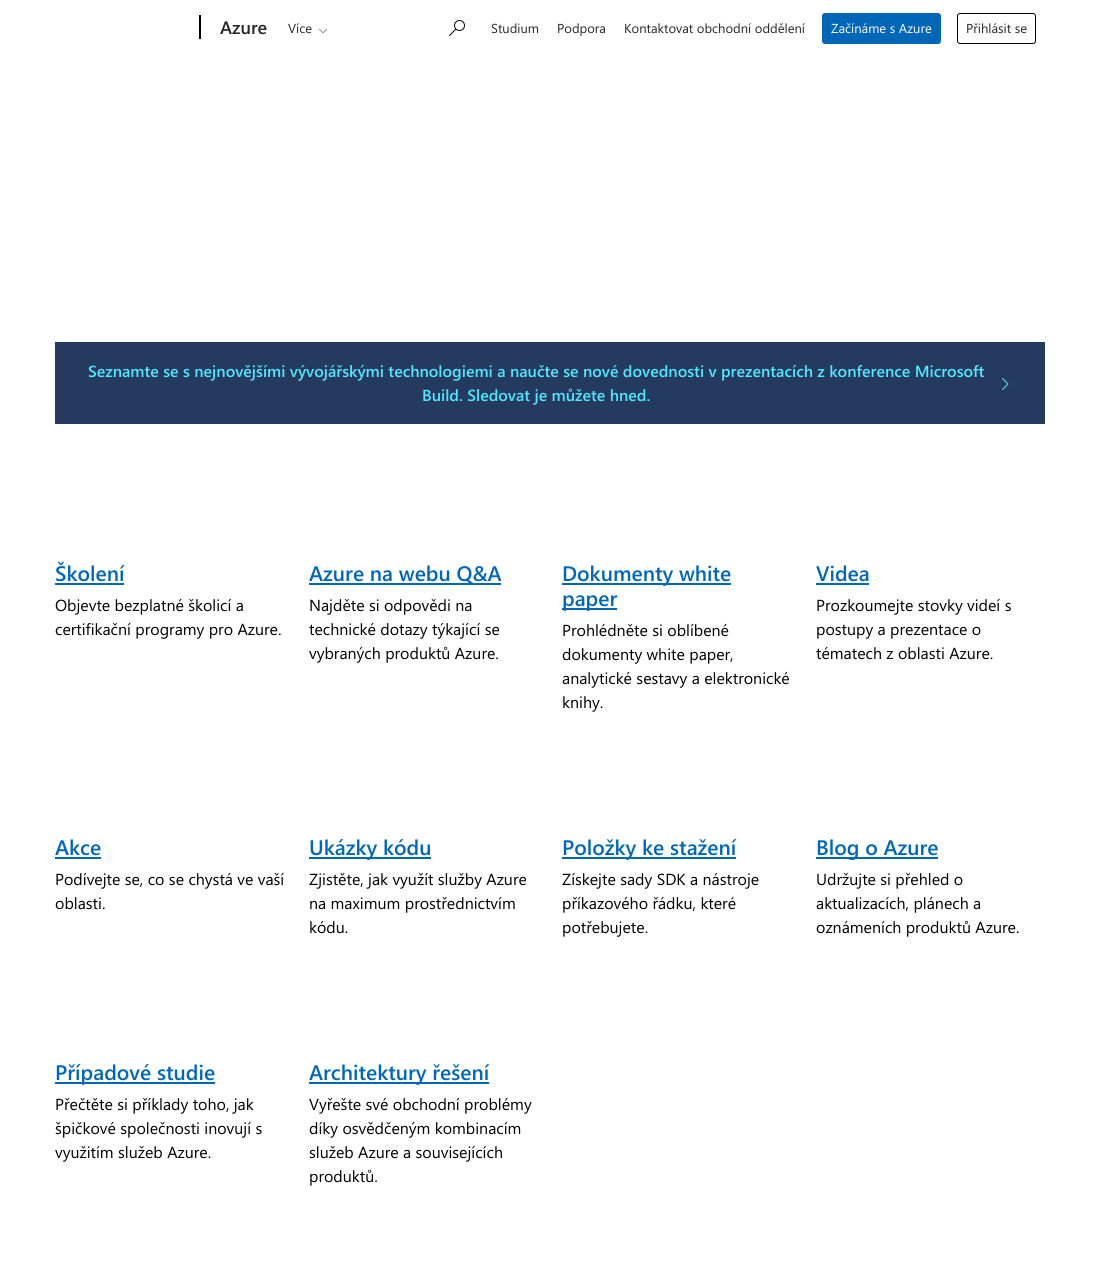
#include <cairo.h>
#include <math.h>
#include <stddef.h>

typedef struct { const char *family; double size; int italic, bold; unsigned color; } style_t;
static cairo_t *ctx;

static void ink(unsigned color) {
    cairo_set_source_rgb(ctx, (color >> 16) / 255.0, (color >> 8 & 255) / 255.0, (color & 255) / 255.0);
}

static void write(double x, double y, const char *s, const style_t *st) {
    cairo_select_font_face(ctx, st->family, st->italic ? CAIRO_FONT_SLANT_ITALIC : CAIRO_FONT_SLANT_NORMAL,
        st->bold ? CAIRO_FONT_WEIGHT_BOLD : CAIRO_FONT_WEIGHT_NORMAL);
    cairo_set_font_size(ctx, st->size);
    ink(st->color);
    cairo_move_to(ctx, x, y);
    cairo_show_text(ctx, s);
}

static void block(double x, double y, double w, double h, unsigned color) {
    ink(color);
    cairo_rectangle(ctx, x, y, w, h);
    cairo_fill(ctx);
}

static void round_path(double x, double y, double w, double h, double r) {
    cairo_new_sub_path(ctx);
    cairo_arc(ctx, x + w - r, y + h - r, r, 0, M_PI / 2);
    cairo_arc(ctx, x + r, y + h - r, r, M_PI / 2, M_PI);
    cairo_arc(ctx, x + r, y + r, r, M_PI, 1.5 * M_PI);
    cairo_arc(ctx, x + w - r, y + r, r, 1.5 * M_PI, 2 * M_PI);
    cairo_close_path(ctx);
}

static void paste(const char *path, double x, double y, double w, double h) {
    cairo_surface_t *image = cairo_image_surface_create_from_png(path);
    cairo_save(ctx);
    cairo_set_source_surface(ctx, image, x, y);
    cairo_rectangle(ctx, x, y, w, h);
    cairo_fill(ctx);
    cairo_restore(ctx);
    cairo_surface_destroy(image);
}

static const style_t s1 = {"Segoe UI SemiBold", 18, 0, 0, 0x262626};
static const style_t s2 = {"Segoe UI", 13, 0, 0, 0x262626};
static const style_t s3 = {"Segoe UI", 13, 0, 0, 0xffffff};
static const style_t s4 = {"Segoe UI SemiBold", 16, 0, 0, 0x50e6ff};
static const style_t s5 = {"Segoe UI SemiBold", 21, 0, 0, 0x0067b8};
static const style_t s6 = {"Segoe UI", 16, 0, 0, 0x000000};

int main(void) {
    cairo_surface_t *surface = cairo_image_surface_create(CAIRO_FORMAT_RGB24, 1100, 1261);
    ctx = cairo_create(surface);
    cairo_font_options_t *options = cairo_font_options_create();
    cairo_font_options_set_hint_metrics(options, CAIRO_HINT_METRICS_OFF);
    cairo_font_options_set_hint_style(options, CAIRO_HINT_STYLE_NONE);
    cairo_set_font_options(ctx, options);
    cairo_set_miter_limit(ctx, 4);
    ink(0xffffff);
    cairo_paint(ctx);
    block(199, 15, 2, 24, 0x000000);
    write(220, 34, "Azure", &s1);
    write(288, 33, "Více", &s2);
    paste("pic1.png", 319, 28, 8, 5);
    paste("pic2.png", 449, 20, 16, 16);
    write(491, 33, "Studium", &s2);
    write(557, 33, "Podpora", &s2);
    write(624, 33, "Kontaktovat obchodní oddělení", &s2);
    ink(0x0067b8);
    round_path(822, 13, 119, 31, 3);
    cairo_fill(ctx);
    write(831, 33, "Začínáme s Azure", &s3);
    round_path(957.5, 13.5, 78, 30, 2.5);
    ink(0x000000);
    cairo_set_line_width(ctx, 1);
    cairo_stroke(ctx);
    write(966, 33, "Přihlásit se", &s2);
    block(55, 342, 990, 82, 0x243a5e);
    write(88, 377, "Seznamte se s nejnovějšími vývojářskými technologiemi a naučte se nové dovednosti v prezentacích z konference Microsoft", &s4);
    paste("pic3.png", 1002, 378, 7, 12);
    write(422, 401, "Build. Sledovat je můžete hned.", &s4);
    write(55, 581, "Školení", &s5);
    block(55, 583, 69, 2, 0x0067b8);
    write(55, 611, "Objevte bezplatné školicí a", &s6);
    write(55, 635, "certifikační programy pro Azure.", &s6);
    write(309, 581, "Azure na webu Q&A", &s5);
    block(309, 583, 192, 2, 0x0067b8);
    write(309, 611, "Najděte si odpovědi na", &s6);
    write(309, 635, "technické dotazy týkající se", &s6);
    write(309, 659, "vybraných produktů Azure.", &s6);
    block(562, 583, 169, 2, 0x0067b8);
    write(562, 581, "Dokumenty white", &s5);
    block(562, 608, 55, 2, 0x0067b8);
    write(562, 606, "paper", &s5);
    write(562, 636, "Prohlédněte si oblíbené", &s6);
    write(562, 660, "dokumenty white paper,", &s6);
    write(562, 684, "analytické sestavy a elektronické", &s6);
    write(562, 708, "knihy.", &s6);
    write(816, 581, "Videa", &s5);
    block(816, 583, 53, 2, 0x0067b8);
    write(816, 611, "Prozkoumejte stovky videí s", &s6);
    write(816, 635, "postupy a prezentace o", &s6);
    write(816, 659, "tématech z oblasti Azure.", &s6);
    write(55, 855, "Akce", &s5);
    block(55, 857, 46, 2, 0x0067b8);
    write(55, 885, "Podívejte se, co se chystá ve vaší", &s6);
    write(55, 909, "oblasti.", &s6);
    block(309, 857, 122, 2, 0x0067b8);
    write(309, 855, "Ukázky kódu", &s5);
    write(309, 885, "Zjistěte, jak využít služby Azure", &s6);
    write(309, 909, "na maximum prostřednictvím", &s6);
    write(309, 933, "kódu.", &s6);
    block(562, 857, 174, 2, 0x0067b8);
    write(562, 855, "Položky ke stažení", &s5);
    write(562, 885, "Získejte sady SDK a nástroje", &s6);
    write(562, 909, "příkazového řádku, které", &s6);
    write(562, 933, "potřebujete.", &s6);
    block(816, 857, 122, 2, 0x0067b8);
    write(816, 855, "Blog o Azure", &s5);
    write(816, 885, "Udržujte si přehled o", &s6);
    write(816, 909, "aktualizacích, plánech a", &s6);
    write(816, 933, "oznámeních produktů Azure.", &s6);
    block(55, 1082, 160, 2, 0x0067b8);
    write(55, 1080, "Případové studie", &s5);
    write(55, 1110, "Přečtěte si příklady toho, jak", &s6);
    write(55, 1134, "špičkové společnosti inovují s", &s6);
    write(55, 1158, "využitím služeb Azure.", &s6);
    block(309, 1082, 180, 2, 0x0067b8);
    write(309, 1080, "Architektury řešení", &s5);
    write(309, 1110, "Vyřešte své obchodní problémy", &s6);
    write(309, 1134, "díky osvědčeným kombinacím", &s6);
    write(309, 1158, "služeb Azure a souvisejících", &s6);
    write(309, 1182, "produktů.", &s6);
    cairo_surface_write_to_png(surface, "screenshot.png");
    cairo_font_options_destroy(options);
    cairo_destroy(ctx);
    cairo_surface_destroy(surface);
    return 0;
}
